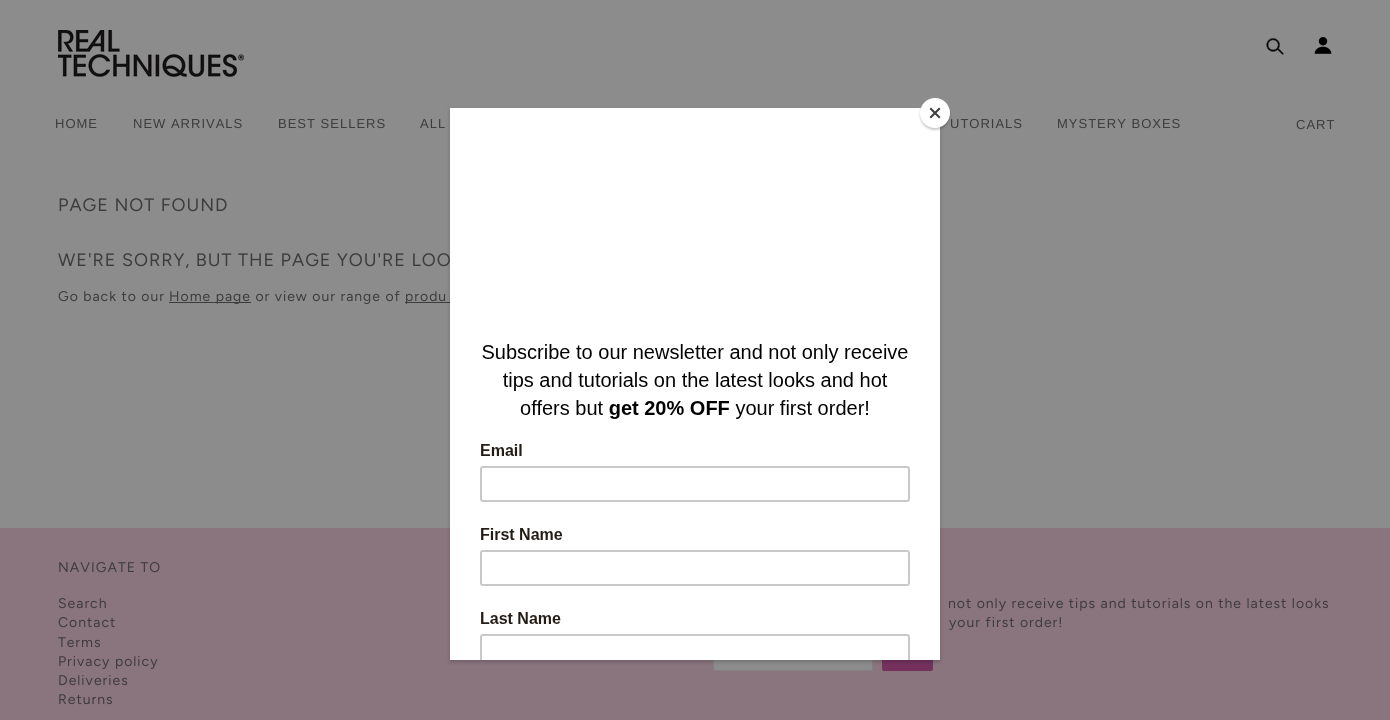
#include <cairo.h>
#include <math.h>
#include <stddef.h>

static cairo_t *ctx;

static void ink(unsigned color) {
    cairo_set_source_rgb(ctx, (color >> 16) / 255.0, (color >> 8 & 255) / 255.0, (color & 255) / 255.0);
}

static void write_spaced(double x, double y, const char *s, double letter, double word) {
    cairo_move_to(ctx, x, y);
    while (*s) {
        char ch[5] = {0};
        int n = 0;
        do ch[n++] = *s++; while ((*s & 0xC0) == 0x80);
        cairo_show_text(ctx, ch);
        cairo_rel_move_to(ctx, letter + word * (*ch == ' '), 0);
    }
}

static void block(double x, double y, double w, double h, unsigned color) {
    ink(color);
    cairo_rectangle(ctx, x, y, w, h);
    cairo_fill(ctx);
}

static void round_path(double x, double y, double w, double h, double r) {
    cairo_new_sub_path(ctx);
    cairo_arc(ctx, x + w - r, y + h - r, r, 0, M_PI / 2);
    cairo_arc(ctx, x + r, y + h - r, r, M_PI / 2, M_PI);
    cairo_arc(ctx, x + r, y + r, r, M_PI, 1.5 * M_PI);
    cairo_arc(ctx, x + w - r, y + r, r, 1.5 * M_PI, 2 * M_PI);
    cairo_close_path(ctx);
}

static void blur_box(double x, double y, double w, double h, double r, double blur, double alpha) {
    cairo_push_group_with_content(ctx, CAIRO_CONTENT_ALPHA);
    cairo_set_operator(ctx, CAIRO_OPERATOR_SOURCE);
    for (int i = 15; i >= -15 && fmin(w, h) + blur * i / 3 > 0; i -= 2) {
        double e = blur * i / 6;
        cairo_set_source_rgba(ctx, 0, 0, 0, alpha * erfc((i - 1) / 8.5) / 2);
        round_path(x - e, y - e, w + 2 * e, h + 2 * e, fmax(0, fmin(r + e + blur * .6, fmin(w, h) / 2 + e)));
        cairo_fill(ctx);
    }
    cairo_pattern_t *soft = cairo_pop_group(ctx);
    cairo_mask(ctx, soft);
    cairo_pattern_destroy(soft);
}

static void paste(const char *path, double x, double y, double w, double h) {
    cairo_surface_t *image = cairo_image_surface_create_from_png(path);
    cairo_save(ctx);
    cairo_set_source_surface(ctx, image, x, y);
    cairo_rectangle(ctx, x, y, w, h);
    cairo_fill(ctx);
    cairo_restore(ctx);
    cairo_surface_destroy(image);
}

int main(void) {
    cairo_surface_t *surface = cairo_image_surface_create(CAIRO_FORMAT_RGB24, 1390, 720);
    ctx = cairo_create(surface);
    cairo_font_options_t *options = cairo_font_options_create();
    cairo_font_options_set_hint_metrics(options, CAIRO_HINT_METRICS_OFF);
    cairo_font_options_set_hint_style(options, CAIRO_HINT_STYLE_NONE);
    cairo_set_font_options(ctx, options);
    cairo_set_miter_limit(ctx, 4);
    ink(0x8c8c8c);
    cairo_paint(ctx);
    block(405, 302, 45, 1, 0x3d3b3b);
    block(0, 528, 1390, 192, 0x8a757e);
    ink(0x8c8c8c);
    round_path(713.5, 643.5, 159, 27, 1.5);
    cairo_fill_preserve(ctx);
    ink(0x818181);
    cairo_set_line_width(ctx, 1);
    cairo_stroke(ctx);
    ink(0x75315e);
    round_path(882, 643, 51, 28, 2);
    cairo_fill(ctx);
    ink(0x000000);
    blur_box(450, 110, 490, 552, 0, 2, 0.2);
    paste("pic1.png", 450, 108, 490, 552);
    blur_box(920, 100, 30, 30, 15, 1, 0.2);
    ink(0xffffff);
    cairo_arc(ctx, 935, 113, 15, 0, 2 * M_PI);
    cairo_fill(ctx);
    ink(0x414141);
    cairo_new_path(ctx);
    cairo_move_to(ctx, 939, 107.5);
    cairo_line_to(ctx, 940.5, 109);
    cairo_line_to(ctx, 931, 118.5);
    cairo_line_to(ctx, 929.5, 117);
    cairo_close_path(ctx);
    cairo_fill(ctx);
    cairo_new_path(ctx);
    cairo_move_to(ctx, 929.5, 109);
    cairo_line_to(ctx, 931, 107.5);
    cairo_line_to(ctx, 940.5, 117);
    cairo_line_to(ctx, 939, 118.5);
    cairo_close_path(ctx);
    cairo_fill(ctx);
    paste("pic2.png", 58, 30, 186, 48);
    paste("pic3.png", 1266, 38, 18, 17);
    paste("pic4.png", 1314, 37, 18, 17);
    cairo_select_font_face(ctx, "Arimo", CAIRO_FONT_SLANT_NORMAL, CAIRO_FONT_WEIGHT_NORMAL);
    cairo_set_font_size(ctx, 13);
    ink(0x3d3b3b);
    write_spaced(55, 128, "HOME", 1, 0);
    write_spaced(133, 128, "NEW ARRIVALS", 1, 0);
    write_spaced(278, 128, "BEST SELLERS", 1, 0);
    write_spaced(420, 128, "ALL", 1, 0);
    write_spaced(950, 128, "UTORIALS", 1, 0);
    write_spaced(1057, 128, "MYSTERY BOXES", 1, 0);
    write_spaced(1296, 129, "CART", 1, 0);
    cairo_select_font_face(ctx, "Figtree", CAIRO_FONT_SLANT_NORMAL, CAIRO_FONT_WEIGHT_NORMAL);
    cairo_set_font_size(ctx, 18);
    write_spaced(58, 211, "PAGE NOT FOUND", 1, 0);
    write_spaced(58, 266, "WE'RE SORRY, BUT THE PAGE YOU'RE LOO", 1, 0);
    cairo_set_font_size(ctx, 14);
    write_spaced(58, 301, "Go back to our", 1, 0);
    block(169, 302, 82, 1, 0x3d3b3b);
    write_spaced(169, 301, "Home page or view our range of", 1, 0);
    write_spaced(405, 301, "produ", 1, 0);
    write_spaced(58, 572, "NAVIGATE TO", 1, 0);
    write_spaced(58, 608, "Search", 1, 0);
    write_spaced(58, 627, "Contact", 1, 0);
    write_spaced(58, 647, "Terms", 1, 0);
    write_spaced(58, 666, "Privacy policy", 1, 0);
    write_spaced(58, 685, "Deliveries", 1, 0);
    write_spaced(58, 704, "Returns", 1, 0);
    write_spaced(948, 608, "not only receive tips and tutorials on the latest looks", 1, 0);
    write_spaced(949, 627, "your first order!", 1, 0);
    cairo_surface_write_to_png(surface, "screenshot.png");
    cairo_font_options_destroy(options);
    cairo_destroy(ctx);
    cairo_surface_destroy(surface);
    return 0;
}
